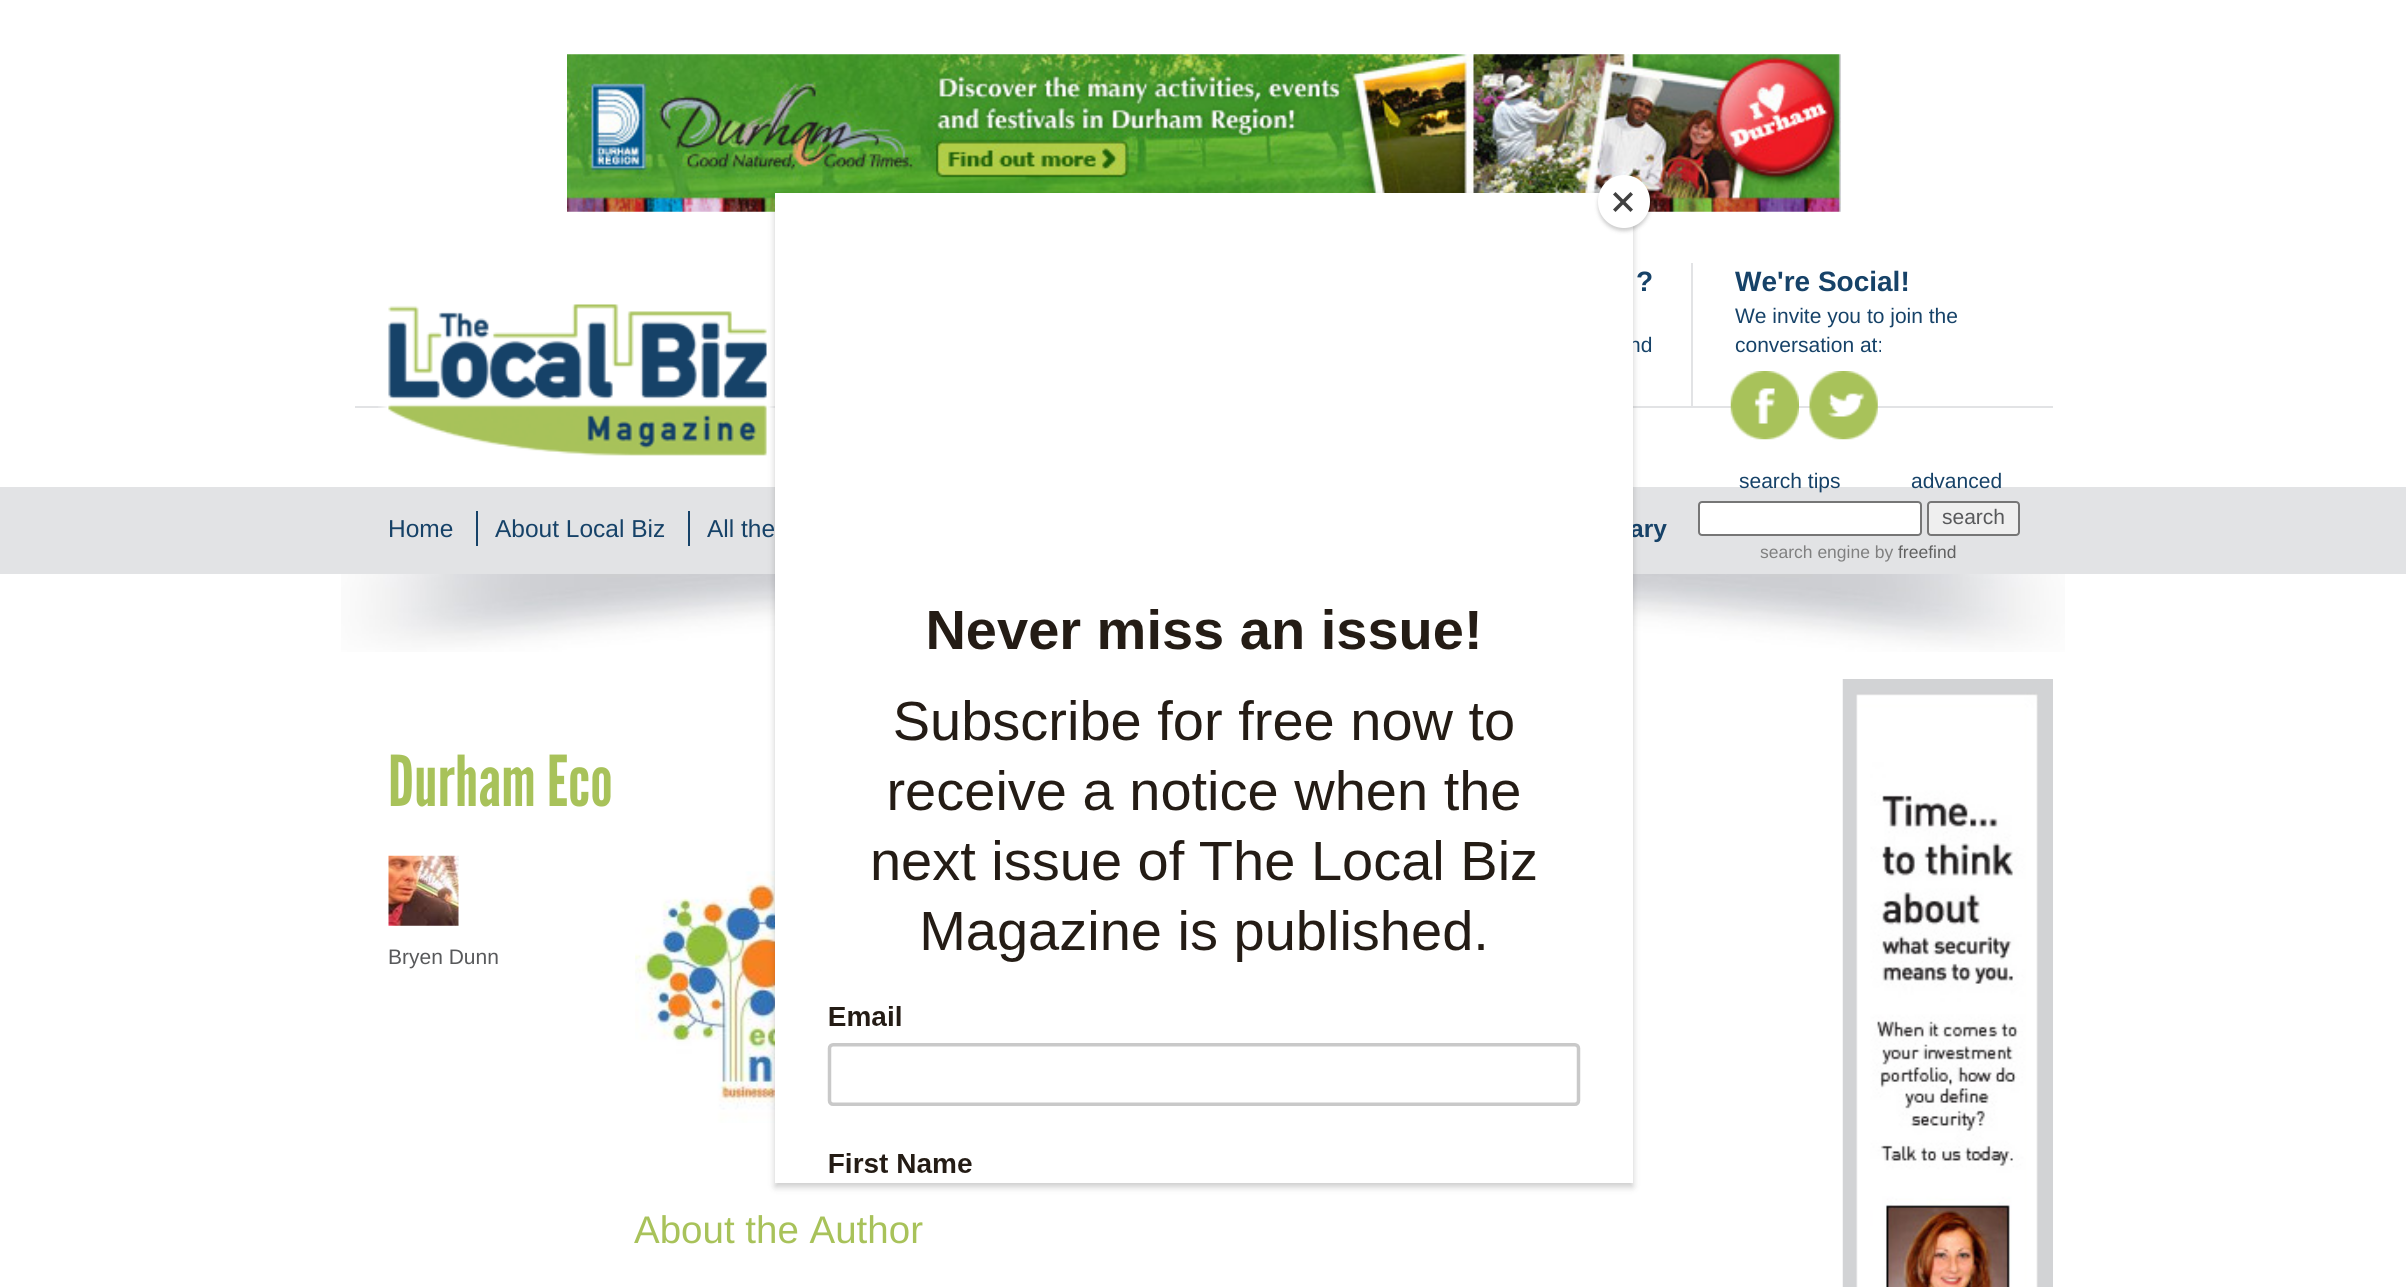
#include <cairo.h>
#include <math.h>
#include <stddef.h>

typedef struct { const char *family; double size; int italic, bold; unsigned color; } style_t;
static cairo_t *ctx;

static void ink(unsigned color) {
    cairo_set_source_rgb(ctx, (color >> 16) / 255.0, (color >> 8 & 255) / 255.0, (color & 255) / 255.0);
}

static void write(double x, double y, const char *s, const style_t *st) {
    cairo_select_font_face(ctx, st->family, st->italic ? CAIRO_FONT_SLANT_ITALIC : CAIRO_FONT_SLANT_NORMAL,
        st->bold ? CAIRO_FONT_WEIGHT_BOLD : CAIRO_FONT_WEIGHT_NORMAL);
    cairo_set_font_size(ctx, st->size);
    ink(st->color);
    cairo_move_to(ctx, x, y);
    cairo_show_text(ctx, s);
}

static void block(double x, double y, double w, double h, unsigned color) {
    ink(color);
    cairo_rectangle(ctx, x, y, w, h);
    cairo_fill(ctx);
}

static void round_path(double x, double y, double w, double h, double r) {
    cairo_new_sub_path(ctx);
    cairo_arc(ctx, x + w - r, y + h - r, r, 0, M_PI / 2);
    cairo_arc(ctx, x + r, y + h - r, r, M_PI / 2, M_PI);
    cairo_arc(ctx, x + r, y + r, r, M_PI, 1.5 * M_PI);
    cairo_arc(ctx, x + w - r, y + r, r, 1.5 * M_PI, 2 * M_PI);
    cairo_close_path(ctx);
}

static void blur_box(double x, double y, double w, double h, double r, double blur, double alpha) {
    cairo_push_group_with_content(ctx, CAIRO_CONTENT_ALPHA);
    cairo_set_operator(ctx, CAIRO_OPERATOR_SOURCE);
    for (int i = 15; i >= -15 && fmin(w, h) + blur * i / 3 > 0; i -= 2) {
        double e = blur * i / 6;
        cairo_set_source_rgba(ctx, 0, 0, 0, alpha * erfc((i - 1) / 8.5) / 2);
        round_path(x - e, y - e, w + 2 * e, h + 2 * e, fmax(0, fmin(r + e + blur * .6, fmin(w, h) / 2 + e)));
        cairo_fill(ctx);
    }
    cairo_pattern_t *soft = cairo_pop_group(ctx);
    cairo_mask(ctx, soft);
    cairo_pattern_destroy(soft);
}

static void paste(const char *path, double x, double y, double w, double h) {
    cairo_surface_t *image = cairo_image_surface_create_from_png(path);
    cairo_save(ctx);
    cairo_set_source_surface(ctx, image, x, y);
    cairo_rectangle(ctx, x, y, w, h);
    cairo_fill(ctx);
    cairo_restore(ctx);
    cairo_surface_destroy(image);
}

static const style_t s1 = {"Liberation Sans", 21, 0, 0, 0x164268};
static const style_t s2 = {"Liberation Sans", 24.5, 0, 1, 0x164268};
static const style_t s3 = {"Liberation Sans", 28, 0, 1, 0x164268};
static const style_t s4 = {"Liberation Sans", 24.5, 0, 0, 0x164268};
static const style_t s5 = {"Liberation Sans", 21, 0, 0, 0x58595b};
static const style_t s6 = {"Liberation Sans", 17.5, 0, 0, 0x808080};
static const style_t s7 = {"Liberation Sans", 17.5, 0, 0, 0x606060};
static const style_t s8 = {"League Gothic", 70, 0, 0, 0xa8c25a};
static const style_t s9 = {"Liberation Sans", 38.5, 0, 0, 0xa8c25a};

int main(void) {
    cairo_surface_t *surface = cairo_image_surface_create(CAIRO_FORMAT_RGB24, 2406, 1287);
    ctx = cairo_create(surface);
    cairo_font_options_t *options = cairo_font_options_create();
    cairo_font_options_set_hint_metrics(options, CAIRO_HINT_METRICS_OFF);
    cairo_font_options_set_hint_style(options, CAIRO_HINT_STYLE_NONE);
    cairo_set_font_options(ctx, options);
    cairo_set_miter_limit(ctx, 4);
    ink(0xffffff);
    cairo_paint(ctx);
    paste("pic2.png", 567, 54, 1274, 158);
    block(355, 406, 1698, 2, 0xe2e3e5);
    paste("pic3.png", 378, 304, 397, 152);
    block(0, 487, 2406, 87, 0xe2e3e5);
    paste("pic6.png", 341, 574, 1724, 78);
    paste("pic8.png", 635, 871, 140, 252);
    ink(0x000000);
    blur_box(775, 196, 858, 991, 0, 3.5, 0.2);
    write(1629, 352, "nd", &s1);
    write(1630, 537, "ary", &s2);
    paste("pic1.png", 775, 193, 858, 990);
    ink(0x000000);
    blur_box(1598, 179, 52, 52, 26, 2, 0.2);
    ink(0xffffff);
    round_path(1598, 175, 52, 53, 26);
    cairo_fill(ctx);
    ink(0x414141);
    cairo_new_path(ctx);
    cairo_move_to(ctx, 1630.5, 192);
    cairo_line_to(ctx, 1633, 194.5);
    cairo_line_to(ctx, 1615.5, 212);
    cairo_line_to(ctx, 1613, 209.5);
    cairo_close_path(ctx);
    cairo_fill(ctx);
    cairo_new_path(ctx);
    cairo_move_to(ctx, 1613, 194.5);
    cairo_line_to(ctx, 1615.5, 192);
    cairo_line_to(ctx, 1633, 209.5);
    cairo_line_to(ctx, 1630.5, 212);
    cairo_close_path(ctx);
    cairo_fill(ctx);
    write(1636, 291, "?", &s3);
    block(1691, 263, 2, 143, 0xe2e3e5);
    write(1735, 291, "We're Social!", &s3);
    write(1735, 323, "We invite you to join the", &s1);
    write(1735, 352, "conversation at:", &s1);
    paste("pic4.png", 1730, 371, 69, 69);
    paste("pic5.png", 1809, 371, 69, 69);
    write(388, 537, "Home", &s4);
    write(495, 537, "About Local Biz", &s4);
    block(476, 511, 2, 35, 0x164268);
    write(707, 537, "All the", &s4);
    block(688, 511, 2, 35, 0x164268);
    write(1739, 488, "search tips", &s1);
    write(1911, 488, "advanced", &s1);
    ink(0xffffff);
    round_path(1699, 502, 222, 33, 3);
    cairo_fill_preserve(ctx);
    ink(0x767676);
    cairo_stroke(ctx);
    ink(0xefefef);
    round_path(1928, 502, 91, 33, 3);
    cairo_fill_preserve(ctx);
    ink(0x767676);
    cairo_stroke(ctx);
    write(1942, 524, "search", &s5);
    write(1760, 558, "search engine by", &s6);
    write(1898, 558, "freefind", &s7);
    write(388, 806, "Durham Eco", &s8);
    paste("pic7.png", 388, 855, 71, 71);
    write(388, 964, "Bryen Dunn", &s5);
    write(634, 1243, "About the Author", &s9);
    block(2038, 679, 15, 608, 0xd2d3d5);
    paste("pic9.png", 1842, 679, 196, 608);
    cairo_surface_write_to_png(surface, "screenshot.png");
    cairo_font_options_destroy(options);
    cairo_destroy(ctx);
    cairo_surface_destroy(surface);
    return 0;
}
